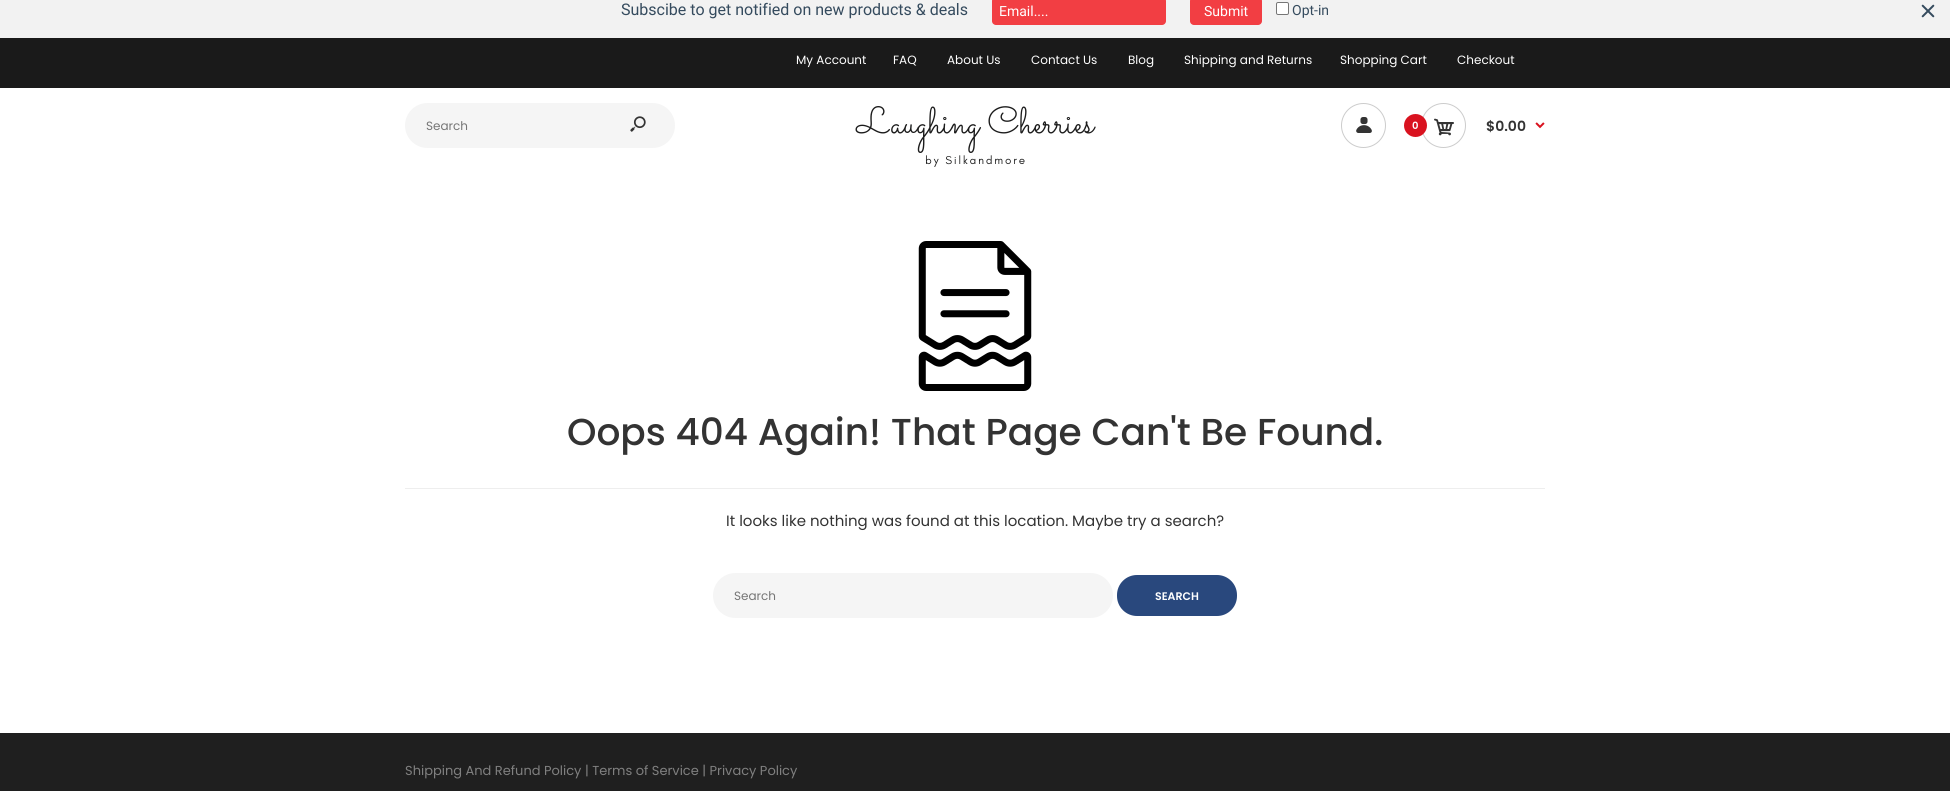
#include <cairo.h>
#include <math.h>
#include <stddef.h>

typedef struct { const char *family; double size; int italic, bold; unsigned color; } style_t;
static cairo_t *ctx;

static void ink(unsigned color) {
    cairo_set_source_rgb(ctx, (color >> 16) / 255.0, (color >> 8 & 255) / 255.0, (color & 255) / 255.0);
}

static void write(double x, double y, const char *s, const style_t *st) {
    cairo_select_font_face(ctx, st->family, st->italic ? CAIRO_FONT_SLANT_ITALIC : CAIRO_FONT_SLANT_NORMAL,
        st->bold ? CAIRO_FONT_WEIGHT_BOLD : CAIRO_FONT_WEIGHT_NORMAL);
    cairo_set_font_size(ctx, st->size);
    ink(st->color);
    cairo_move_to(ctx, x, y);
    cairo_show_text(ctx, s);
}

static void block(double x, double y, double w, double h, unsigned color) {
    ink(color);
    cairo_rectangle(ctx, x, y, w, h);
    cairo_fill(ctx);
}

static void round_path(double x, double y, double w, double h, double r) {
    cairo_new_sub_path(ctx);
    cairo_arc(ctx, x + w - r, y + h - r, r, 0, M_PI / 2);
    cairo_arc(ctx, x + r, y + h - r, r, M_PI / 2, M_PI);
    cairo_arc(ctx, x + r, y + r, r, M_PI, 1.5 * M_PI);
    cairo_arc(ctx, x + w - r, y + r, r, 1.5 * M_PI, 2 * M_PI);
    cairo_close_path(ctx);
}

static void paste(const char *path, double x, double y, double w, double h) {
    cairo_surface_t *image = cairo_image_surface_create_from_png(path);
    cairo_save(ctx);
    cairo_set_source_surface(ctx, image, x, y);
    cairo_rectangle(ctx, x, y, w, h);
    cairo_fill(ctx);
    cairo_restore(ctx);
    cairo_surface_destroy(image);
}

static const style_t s1 = {"Roboto", 16, 0, 0, 0x354b5e};
static const style_t s2 = {"Roboto", 14, 0, 0, 0xffffff};
static const style_t s3 = {"Roboto", 14, 0, 0, 0x354b5e};
static const style_t s4 = {"Poppins", 12, 0, 0, 0xffffff};
static const style_t s5 = {"Poppins", 12, 0, 0, 0x757575};
static const style_t s6 = {"Poppins SemiBold", 10, 0, 0, 0xffffff};
static const style_t s7 = {"Poppins SemiBold", 14, 0, 0, 0x333333};
static const style_t s8 = {"Poppins Medium", 37.5, 0, 0, 0x333333};
static const style_t s9 = {"Poppins", 15, 0, 0, 0x333333};
static const style_t s10 = {"Poppins SemiBold", 11, 0, 0, 0xffffff};
static const style_t s11 = {"Poppins", 13, 0, 0, 0x808080};

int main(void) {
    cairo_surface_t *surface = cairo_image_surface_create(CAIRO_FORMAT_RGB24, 1950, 791);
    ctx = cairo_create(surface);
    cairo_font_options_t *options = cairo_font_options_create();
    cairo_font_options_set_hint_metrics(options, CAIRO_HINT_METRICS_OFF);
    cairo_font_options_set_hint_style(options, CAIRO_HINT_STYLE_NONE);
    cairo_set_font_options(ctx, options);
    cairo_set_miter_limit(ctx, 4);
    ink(0xffffff);
    cairo_paint(ctx);
    block(0, 0, 1950, 38, 0xf2f2f2);
    write(621, 15, "Subscibe to get notified on new products & deals", &s1);
    ink(0xf23e43);
    round_path(992, -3, 174, 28, 4);
    cairo_fill(ctx);
    write(999, 16, "Email....", &s2);
    ink(0xf23e43);
    round_path(1190, -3, 72, 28, 4);
    cairo_fill(ctx);
    write(1204, 16, "Submit", &s2);
    round_path(1276.5, 2.5, 12, 12, 1.5);
    cairo_fill_preserve(ctx);
    ink(0x767676);
    cairo_set_line_width(ctx, 1);
    cairo_stroke(ctx);
    write(1292, 15, "Opt-in", &s3);
    paste("pic1.png", 1921, 4, 14, 14);
    block(0, 38, 1950, 50, 0x1a1a1a);
    write(796, 64, "My Account", &s4);
    write(893, 64, "FAQ", &s4);
    write(947, 64, "About Us", &s4);
    write(1031, 64, "Contact Us", &s4);
    write(1128, 64, "Blog", &s4);
    write(1184, 64, "Shipping and Returns", &s4);
    write(1340, 64, "Shopping Cart", &s4);
    write(1457, 64, "Checkout", &s4);
    ink(0xf5f5f5);
    round_path(405, 103, 270, 45, 22.5);
    cairo_fill(ctx);
    write(426, 130, "Search", &s5);
    paste("pic2.png", 630, 116, 16, 16);
    paste("pic3.png", 855, 106, 241, 61);
    cairo_arc(ctx, 1363.5, 125.5, 22, 0, 2 * M_PI);
    ink(0xcccccc);
    cairo_stroke(ctx);
    paste("pic4.png", 1356, 117, 16, 16);
    cairo_arc(ctx, 1443.5, 125.5, 22, 0, 2 * M_PI);
    cairo_stroke(ctx);
    ink(0xd9121f);
    cairo_arc(ctx, 1415.5, 125.5, 11.5, 0, 2 * M_PI);
    cairo_fill(ctx);
    write(1412, 129, "0", &s6);
    paste("pic5.png", 1434, 118, 20, 18);
    write(1486, 131, "$0.00", &s7);
    paste("pic6.png", 1535, 122, 10, 7);
    block(405, 488, 1140, 1, 0xeeeeee);
    paste("pic7.png", 918, 241, 114, 150);
    write(567, 445, "Oops 404 Again! That Page Can't Be Found.", &s8);
    write(726, 526, "It looks like nothing was found at this location. Maybe try a search?", &s9);
    ink(0xf5f5f5);
    round_path(713, 573, 400, 45, 22.5);
    cairo_fill(ctx);
    write(734, 600, "Search", &s5);
    ink(0x29487d);
    round_path(1117, 575, 120, 41, 20);
    cairo_fill(ctx);
    write(1155, 600, "SEARCH", &s10);
    block(0, 733, 1950, 58, 0x1f1f1f);
    write(405, 775, "Shipping And Refund Policy | Terms of Service | Privacy Policy", &s11);
    cairo_surface_write_to_png(surface, "screenshot.png");
    cairo_font_options_destroy(options);
    cairo_destroy(ctx);
    cairo_surface_destroy(surface);
    return 0;
}
